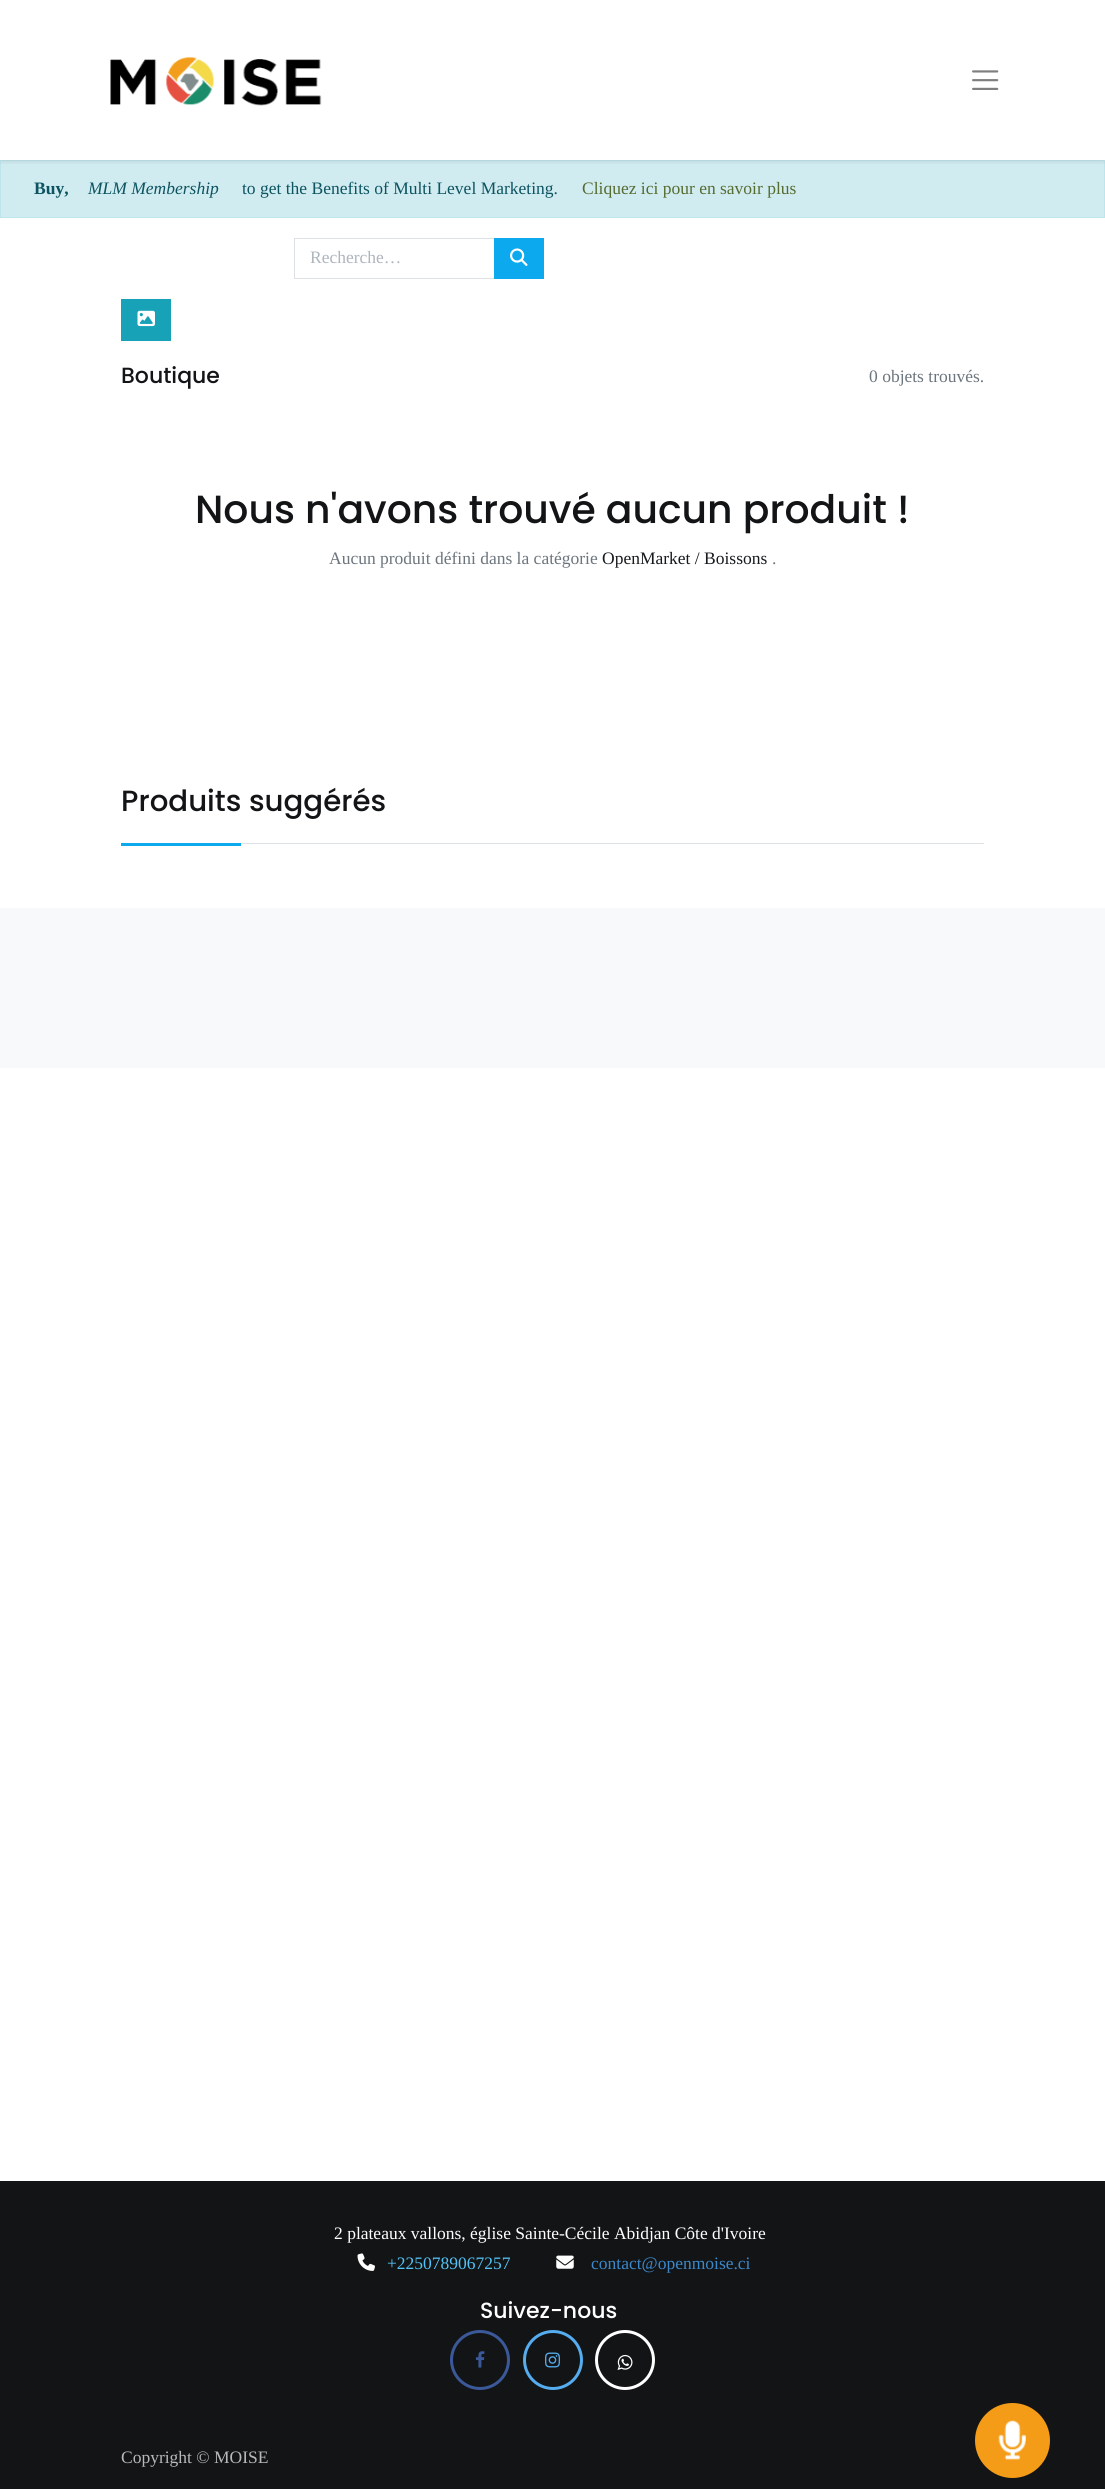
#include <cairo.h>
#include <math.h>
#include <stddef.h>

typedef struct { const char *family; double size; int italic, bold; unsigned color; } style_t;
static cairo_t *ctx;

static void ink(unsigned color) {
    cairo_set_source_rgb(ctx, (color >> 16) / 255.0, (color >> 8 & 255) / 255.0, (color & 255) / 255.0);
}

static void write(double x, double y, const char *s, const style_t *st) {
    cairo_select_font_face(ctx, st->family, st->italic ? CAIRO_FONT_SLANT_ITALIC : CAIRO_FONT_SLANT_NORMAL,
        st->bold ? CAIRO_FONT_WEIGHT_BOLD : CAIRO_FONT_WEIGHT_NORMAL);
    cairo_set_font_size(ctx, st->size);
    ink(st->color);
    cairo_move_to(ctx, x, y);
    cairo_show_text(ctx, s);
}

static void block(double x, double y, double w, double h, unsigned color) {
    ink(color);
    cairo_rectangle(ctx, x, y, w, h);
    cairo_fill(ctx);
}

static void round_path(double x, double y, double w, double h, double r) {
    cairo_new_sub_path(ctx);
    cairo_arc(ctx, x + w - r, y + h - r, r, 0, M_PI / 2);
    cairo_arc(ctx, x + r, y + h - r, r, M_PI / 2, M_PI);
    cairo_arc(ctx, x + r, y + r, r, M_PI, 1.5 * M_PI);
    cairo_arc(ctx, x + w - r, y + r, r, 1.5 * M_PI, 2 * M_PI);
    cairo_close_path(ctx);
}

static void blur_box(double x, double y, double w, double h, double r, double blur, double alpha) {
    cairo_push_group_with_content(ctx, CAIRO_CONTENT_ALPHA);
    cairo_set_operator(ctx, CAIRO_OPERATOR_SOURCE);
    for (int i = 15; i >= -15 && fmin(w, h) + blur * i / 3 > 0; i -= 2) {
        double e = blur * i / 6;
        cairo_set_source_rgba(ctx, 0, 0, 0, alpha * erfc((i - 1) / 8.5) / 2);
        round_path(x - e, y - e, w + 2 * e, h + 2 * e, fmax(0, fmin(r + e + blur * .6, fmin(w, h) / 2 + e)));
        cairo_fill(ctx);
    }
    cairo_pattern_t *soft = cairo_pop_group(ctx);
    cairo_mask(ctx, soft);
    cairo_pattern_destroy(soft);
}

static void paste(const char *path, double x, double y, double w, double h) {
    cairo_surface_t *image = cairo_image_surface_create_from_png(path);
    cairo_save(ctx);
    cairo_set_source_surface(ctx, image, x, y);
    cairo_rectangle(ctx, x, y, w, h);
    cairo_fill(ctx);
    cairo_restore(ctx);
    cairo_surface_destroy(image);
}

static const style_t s1 = {"Liberation Serif", 17.5, 0, 1, 0x0c5460};
static const style_t s2 = {"Liberation Serif", 17.5, 1, 0, 0x0c5460};
static const style_t s3 = {"Liberation Serif", 17.5, 0, 0, 0x0c5460};
static const style_t s4 = {"Liberation Serif", 17.5, 0, 0, 0x556b2f};
static const style_t s5 = {"Liberation Serif", 17.5, 0, 0, 0xadb5bd};
static const style_t s6 = {"Poppins Medium", 22, 0, 0, 0x121416};
static const style_t s7 = {"Liberation Serif", 17.5, 0, 0, 0x6c757d};
static const style_t s8 = {"Poppins Medium", 39.3, 0, 0, 0x121416};
static const style_t s9 = {"Liberation Serif", 17.5, 0, 0, 0x171a1c};
static const style_t s10 = {"Poppins Medium", 29.25, 0, 0, 0x121416};
static const style_t s11 = {"Liberation Serif", 17.5, 0, 0, 0xffffff};
static const style_t s12 = {"Liberation Serif", 17.5, 0, 0, 0x53c3f6};
static const style_t s13 = {"Liberation Serif", 17.5, 0, 0, 0x3c88c9};
static const style_t s14 = {"Poppins Medium", 22, 0, 0, 0xffffff};
static const style_t s15 = {"Liberation Serif", 17.5, 0, 0, 0xb8b9b9};

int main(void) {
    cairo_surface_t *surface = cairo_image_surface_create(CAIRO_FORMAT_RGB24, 1105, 2489);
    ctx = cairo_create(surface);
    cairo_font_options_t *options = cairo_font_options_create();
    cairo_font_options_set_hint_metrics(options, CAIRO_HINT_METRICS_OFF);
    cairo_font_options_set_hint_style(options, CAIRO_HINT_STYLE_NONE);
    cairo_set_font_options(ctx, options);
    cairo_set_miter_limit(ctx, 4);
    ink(0xffffff);
    cairo_paint(ctx);
    ink(0xd1ecf1);
    cairo_rectangle(ctx, 0.5, 160.5, 1104, 57);
    cairo_fill_preserve(ctx);
    ink(0xbee5eb);
    cairo_set_line_width(ctx, 1);
    cairo_stroke(ctx);
    cairo_save(ctx);
    cairo_rectangle(ctx, 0, 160, 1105, 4);
    cairo_clip(ctx);
    ink(0x000000);
    blur_box(0, 3, 1105, 160, 0, 2.5, 0.07);
    cairo_restore(ctx);
    paste("pic1.png", 110, 57, 212, 49);
    paste("pic2.png", 972, 70, 27, 20);
    write(34, 194, "Buy,", &s1);
    write(88, 194, "MLM Membership", &s2);
    write(242, 194, "to get the Benefits of Multi Level Marketing.", &s3);
    write(582, 194, "Cliquez ici pour en savoir plus", &s4);
    cairo_rectangle(ctx, 294.5, 238.5, 200, 40);
    ink(0xdee2e6);
    cairo_stroke(ctx);
    write(310, 263, "Recherche…", &s5);
    block(494, 238, 50, 41, 0x0da9ef);
    paste("pic3.png", 510, 248, 18, 18);
    block(121, 299, 50, 42, 0x17a2b8);
    paste("pic4.png", 137, 310, 18, 17);
    write(121, 383, "Boutique", &s6);
    write(869, 382, "0 objets trouvés.", &s7);
    write(195, 523, "Nous n'avons trouvé aucun produit !", &s8);
    write(329, 564, "Aucun produit défini dans la catégorie", &s7);
    write(602, 564, "OpenMarket / Boissons", &s9);
    write(772, 564, ".", &s7);
    block(241, 843, 743, 1, 0xdee2e6);
    write(121, 811, "Produits suggérés", &s10);
    block(121, 843, 120, 3, 0x0da9ef);
    block(0, 908, 1105, 160, 0xf8f9fa);
    block(0, 2181, 1105, 308, 0x121416);
    write(334, 2239, "2 plateaux vallons, église Sainte-Cécile Abidjan Côte d'Ivoire", &s11);
    paste("pic5.png", 357, 2253, 18, 18);
    write(387, 2269, "+2250789067257", &s12);
    paste("pic6.png", 556, 2255, 18, 14);
    write(591, 2269, "contact@openmoise.ci", &s13);
    write(480, 2318, "Suivez-nous", &s14);
    cairo_new_path(ctx);
    cairo_arc(ctx, 480, 2360, 28.5, 0, 2 * M_PI);
    ink(0x3b5999);
    cairo_set_line_width(ctx, 3);
    cairo_stroke(ctx);
    paste("pic7.png", 475, 2351, 10, 17);
    cairo_arc(ctx, 553, 2360, 28.5, 0, 2 * M_PI);
    ink(0x55acee);
    cairo_stroke(ctx);
    paste("pic8.png", 545, 2352, 15, 16);
    cairo_arc(ctx, 625, 2360, 28.5, 0, 2 * M_PI);
    ink(0xffffff);
    cairo_stroke(ctx);
    paste("pic9.png", 617, 2354, 16, 16);
    write(121, 2463, "Copyright © MOISE", &s15);
    ink(0xf49c17);
    cairo_new_path(ctx);
    cairo_arc(ctx, 1012.5, 2440.5, 37.5, 0, 2 * M_PI);
    cairo_fill(ctx);
    paste("pic10.png", 998, 2420, 28, 40);
    cairo_surface_write_to_png(surface, "screenshot.png");
    cairo_font_options_destroy(options);
    cairo_destroy(ctx);
    cairo_surface_destroy(surface);
    return 0;
}
